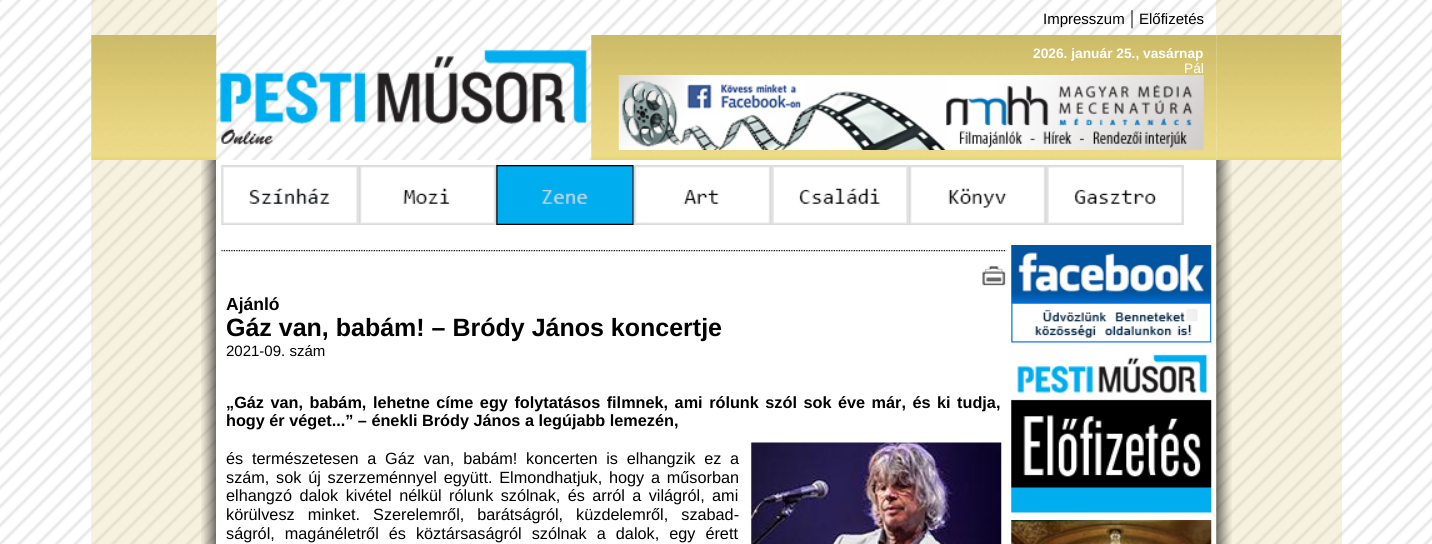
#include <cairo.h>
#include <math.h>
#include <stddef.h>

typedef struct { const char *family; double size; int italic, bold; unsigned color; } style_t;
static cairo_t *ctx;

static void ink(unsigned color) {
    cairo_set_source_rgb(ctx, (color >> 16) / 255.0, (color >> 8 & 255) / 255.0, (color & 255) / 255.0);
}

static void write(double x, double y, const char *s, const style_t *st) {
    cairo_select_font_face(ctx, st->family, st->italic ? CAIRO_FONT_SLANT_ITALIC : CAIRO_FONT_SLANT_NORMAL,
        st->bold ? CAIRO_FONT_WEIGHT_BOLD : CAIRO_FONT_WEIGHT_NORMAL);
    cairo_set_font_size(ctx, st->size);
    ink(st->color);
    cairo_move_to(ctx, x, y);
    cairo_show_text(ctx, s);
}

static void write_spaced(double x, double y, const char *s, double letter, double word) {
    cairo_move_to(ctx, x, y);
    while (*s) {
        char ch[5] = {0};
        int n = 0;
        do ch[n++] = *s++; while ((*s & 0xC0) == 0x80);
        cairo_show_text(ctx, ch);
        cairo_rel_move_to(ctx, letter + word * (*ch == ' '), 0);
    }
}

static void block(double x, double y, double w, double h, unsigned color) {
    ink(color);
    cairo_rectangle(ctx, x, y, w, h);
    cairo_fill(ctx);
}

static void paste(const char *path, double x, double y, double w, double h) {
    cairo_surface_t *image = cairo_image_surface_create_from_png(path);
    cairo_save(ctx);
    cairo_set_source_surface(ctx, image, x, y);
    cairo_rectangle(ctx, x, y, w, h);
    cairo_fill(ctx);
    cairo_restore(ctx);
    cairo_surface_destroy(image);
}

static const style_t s1 = {"Liberation Sans", 15, 0, 0, 0x000000};
static const style_t s2 = {"Liberation Serif", 20, 0, 0, 0x000000};
static const style_t s3 = {"Liberation Sans", 13.75, 0, 1, 0xffffff};
static const style_t s4 = {"Liberation Sans", 13.75, 0, 0, 0xffffff};
static const style_t s5 = {"Liberation Sans", 17.5, 0, 1, 0x000000};
static const style_t s6 = {"Liberation Sans", 25, 0, 1, 0x000000};
static const style_t s7 = {"Liberation Sans", 16.25, 0, 1, 0x000000};

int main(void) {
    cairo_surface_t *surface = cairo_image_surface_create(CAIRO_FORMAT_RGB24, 1432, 544);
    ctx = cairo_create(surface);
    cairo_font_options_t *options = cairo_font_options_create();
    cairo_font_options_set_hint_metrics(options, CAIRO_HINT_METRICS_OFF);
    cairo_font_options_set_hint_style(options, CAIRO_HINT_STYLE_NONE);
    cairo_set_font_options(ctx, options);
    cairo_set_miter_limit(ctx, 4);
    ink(0xffffff);
    cairo_paint(ctx);
    paste("pic1.png", 0, 0, 1432, 544);
    cairo_set_source_rgba(ctx, 0.89, 0.812, 0.502, 0.25);
    cairo_rectangle(ctx, 91, 0, 126, 35);
    cairo_fill(ctx);
    write(1043, 24, "Impresszum", &s1);
    write(1130, 24, "|", &s2);
    write(1139, 24, "Előfizetés", &s1);
    cairo_set_source_rgba(ctx, 0.89, 0.812, 0.502, 0.25);
    cairo_rectangle(ctx, 1216, 0, 126, 35);
    cairo_fill(ctx);
    paste("pic2.png", 91, 35, 126, 125);
    paste("pic3.png", 219, 49, 368, 97);
    paste("pic4.png", 591, 35, 626, 125);
    write(1033, 58, "2026. január 25., vasárnap", &s3);
    write(1184, 73, "Pál", &s4);
    paste("pic5.png", 618, 75, 586, 75);
    paste("pic6.png", 1216, 35, 126, 125);
    cairo_set_source_rgba(ctx, 0.89, 0.812, 0.502, 0.25);
    cairo_rectangle(ctx, 91, 160, 125, 384);
    cairo_fill(ctx);
    paste("pic7.png", 201, 160, 15, 384);
    block(216, 160, 1000, 384, 0xffffff);
    paste("pic8.png", 221, 165, 138, 60);
    paste("pic9.png", 359, 165, 138, 60);
    paste("pic10.png", 496, 165, 138, 60);
    paste("pic11.png", 633, 165, 139, 60);
    paste("pic12.png", 771, 165, 138, 60);
    paste("pic13.png", 909, 165, 138, 60);
    paste("pic14.png", 1046, 165, 138, 60);
    paste("pic15.png", 221, 250, 786, 2);
    paste("pic16.png", 982, 264, 24, 22);
    write(226, 310, "Ajánló", &s5);
    write(226, 336, "Gáz van, babám! – Bródy János koncertje", &s6);
    write(226, 356, "2021-09. szám", &s1);
    cairo_select_font_face(ctx, "Liberation Sans", CAIRO_FONT_SLANT_NORMAL, CAIRO_FONT_WEIGHT_BOLD);
    cairo_set_font_size(ctx, 16.25);
    write_spaced(226, 408, "„Gáz van, babám, lehetne címe egy folytatásos filmnek, ami rólunk szól sok éve már, és ki tudja,", 0, 2);
    write(226, 426, "hogy ér véget...” – énekli Bródy János a legújabb lemezén,", &s7);
    cairo_select_font_face(ctx, "Liberation Sans", CAIRO_FONT_SLANT_NORMAL, CAIRO_FONT_WEIGHT_NORMAL);
    write_spaced(226, 464, "és természetesen a Gáz van, babám! koncerten is elhangzik ez a", 0, 4.25);
    paste("pic17.png", 751, 442, 251, 102);
    write_spaced(226, 483, "szám, sok új szerzeménnyel együtt. Elmondhatjuk, hogy a műsorban", 0, 2.25);
    write_spaced(226, 501, "elhangzó dalok kivétel nélkül rólunk szólnak, és arról a világról, ami", 0, 2.9);
    write_spaced(226, 520, "körülvesz minket. Szerelemről, barátságról, küzdelemről, szabad-", 0, 8.5);
    write_spaced(226, 539, "ságról, magánéletről és köztársaságról szólnak a dalok, egy érett", 0, 5.5);
    paste("pic18.png", 1011, 245, 201, 98);
    paste("pic19.png", 1011, 353, 201, 160);
    paste("pic20.png", 1011, 520, 201, 24);
    cairo_set_source_rgba(ctx, 0.89, 0.812, 0.502, 0.25);
    cairo_rectangle(ctx, 1216, 160, 126, 384);
    cairo_fill(ctx);
    paste("pic21.png", 1216, 160, 16, 384);
    cairo_surface_write_to_png(surface, "screenshot.png");
    cairo_font_options_destroy(options);
    cairo_destroy(ctx);
    cairo_surface_destroy(surface);
    return 0;
}
